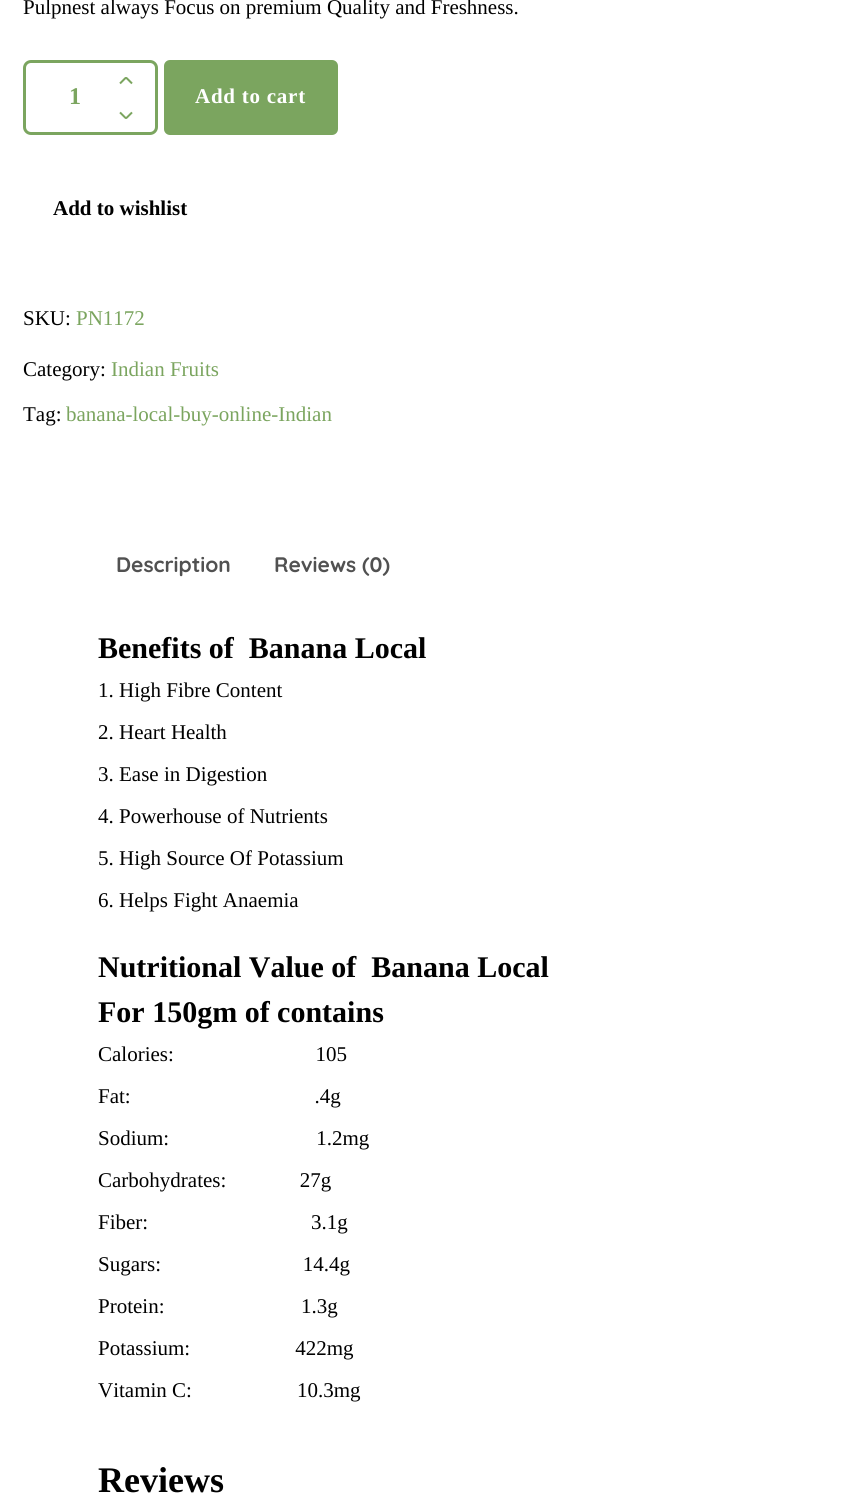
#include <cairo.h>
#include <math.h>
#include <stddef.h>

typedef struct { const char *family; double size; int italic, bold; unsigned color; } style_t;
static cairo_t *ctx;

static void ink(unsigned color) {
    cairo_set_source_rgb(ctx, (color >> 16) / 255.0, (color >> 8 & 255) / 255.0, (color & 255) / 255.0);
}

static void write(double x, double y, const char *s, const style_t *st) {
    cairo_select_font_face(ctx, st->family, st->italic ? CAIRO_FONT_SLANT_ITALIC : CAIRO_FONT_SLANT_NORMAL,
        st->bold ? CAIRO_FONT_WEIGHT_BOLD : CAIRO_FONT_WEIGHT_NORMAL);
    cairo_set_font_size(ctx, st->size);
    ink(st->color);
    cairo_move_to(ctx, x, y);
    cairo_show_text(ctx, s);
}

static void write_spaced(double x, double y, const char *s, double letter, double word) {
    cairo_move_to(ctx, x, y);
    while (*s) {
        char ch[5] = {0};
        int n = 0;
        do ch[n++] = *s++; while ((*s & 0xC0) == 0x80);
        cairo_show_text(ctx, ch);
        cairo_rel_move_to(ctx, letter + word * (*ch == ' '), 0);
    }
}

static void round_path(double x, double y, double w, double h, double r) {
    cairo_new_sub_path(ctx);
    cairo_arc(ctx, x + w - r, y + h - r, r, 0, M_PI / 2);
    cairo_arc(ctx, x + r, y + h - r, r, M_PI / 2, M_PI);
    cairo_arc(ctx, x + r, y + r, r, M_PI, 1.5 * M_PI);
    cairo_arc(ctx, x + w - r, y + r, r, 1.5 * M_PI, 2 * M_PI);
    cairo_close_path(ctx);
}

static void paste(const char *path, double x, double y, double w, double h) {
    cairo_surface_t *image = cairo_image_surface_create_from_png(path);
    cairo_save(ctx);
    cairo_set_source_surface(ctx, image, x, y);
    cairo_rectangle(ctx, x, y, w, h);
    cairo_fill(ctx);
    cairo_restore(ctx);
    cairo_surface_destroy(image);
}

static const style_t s1 = {"Liberation Serif", 21, 0, 0, 0x000000};
static const style_t s2 = {"Liberation Serif", 24, 0, 1, 0x7ba55f};
static const style_t s3 = {"Liberation Serif", 21, 0, 1, 0x000000};
static const style_t s4 = {"Liberation Serif", 21, 0, 0, 0x7ba55f};
static const style_t s5 = {"Quicksand", 21, 0, 1, 0x515151};
static const style_t s6 = {"Liberation Serif", 30, 0, 1, 0x000000};
static const style_t s7 = {"Liberation Serif", 36, 0, 1, 0x000000};

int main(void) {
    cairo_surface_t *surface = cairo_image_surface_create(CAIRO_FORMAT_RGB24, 848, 1496);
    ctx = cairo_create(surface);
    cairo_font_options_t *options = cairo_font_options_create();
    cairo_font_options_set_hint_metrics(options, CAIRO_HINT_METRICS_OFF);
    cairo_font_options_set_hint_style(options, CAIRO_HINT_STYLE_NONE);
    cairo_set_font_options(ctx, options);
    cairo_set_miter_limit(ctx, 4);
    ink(0xffffff);
    cairo_paint(ctx);
    write(23, 14, "Pulpnest always Focus on premium Quality and Freshness.", &s1);
    round_path(24.5, 61.5, 132, 72, 6.5);
    ink(0x7ba55f);
    cairo_set_line_width(ctx, 3);
    cairo_stroke(ctx);
    paste("pic1.png", 119, 77, 14, 8);
    write(69, 104, "1", &s2);
    paste("pic2.png", 119, 111, 14, 8);
    round_path(164, 60, 174, 75, 6);
    cairo_fill(ctx);
    cairo_set_font_size(ctx, 21);
    ink(0xffffff);
    write_spaced(195, 103, "Add to cart", 0.75, 0);
    write(53, 215, "Add to wishlist", &s3);
    write(23, 325, "SKU:", &s1);
    write(76, 325, "PN1172", &s4);
    write(23, 376, "Category:", &s1);
    write(111, 376, "Indian Fruits", &s4);
    write(23, 421, "Tag:", &s1);
    write(66, 421, "banana-local-buy-online-Indian", &s4);
    write(116, 572, "Description", &s5);
    write(274, 572, "Reviews (0)", &s5);
    write(98, 658, "Benefits of  Banana Local", &s6);
    write(98, 697, "1. High Fibre Content", &s1);
    write(98, 739, "2. Heart Health", &s1);
    write(98, 781, "3. Ease in Digestion", &s1);
    write(98, 823, "4. Powerhouse of Nutrients", &s1);
    write(98, 865, "5. High Source Of Potassium", &s1);
    write(98, 907, "6. Helps Fight Anaemia", &s1);
    write(98, 977, "Nutritional Value of  Banana Local", &s6);
    write(98, 1022, "For 150gm of contains", &s6);
    write(98, 1061, "Calories:                           105", &s1);
    write(98, 1103, "Fat:                                   .4g", &s1);
    write(98, 1145, "Sodium:                            1.2mg", &s1);
    write(98, 1187, "Carbohydrates:              27g", &s1);
    write(98, 1229, "Fiber:                               3.1g", &s1);
    write(98, 1271, "Sugars:                           14.4g", &s1);
    write(98, 1313, "Protein:                          1.3g", &s1);
    write(98, 1355, "Potassium:                    422mg", &s1);
    write(98, 1397, "Vitamin C:                    10.3mg", &s1);
    write(98, 1492, "Reviews", &s7);
    cairo_surface_write_to_png(surface, "screenshot.png");
    cairo_font_options_destroy(options);
    cairo_destroy(ctx);
    cairo_surface_destroy(surface);
    return 0;
}
